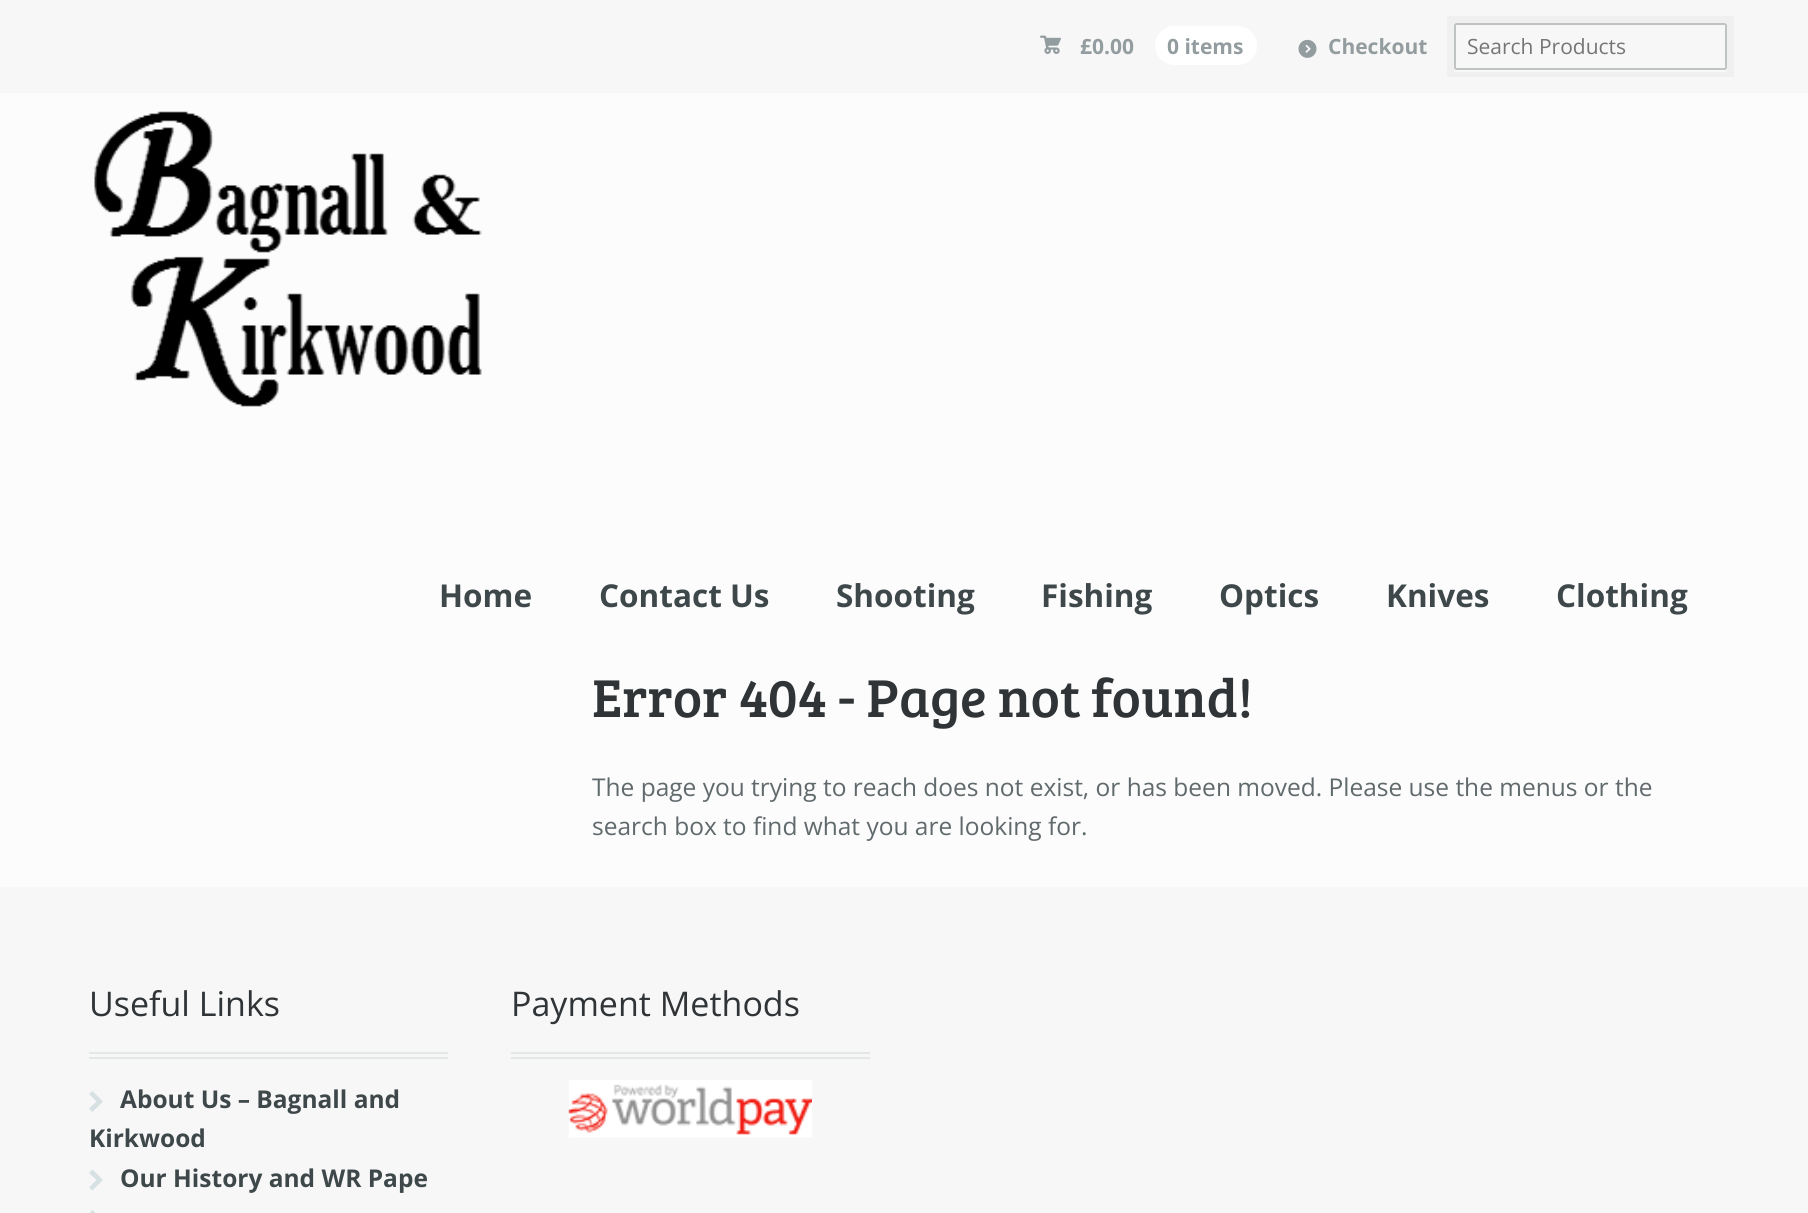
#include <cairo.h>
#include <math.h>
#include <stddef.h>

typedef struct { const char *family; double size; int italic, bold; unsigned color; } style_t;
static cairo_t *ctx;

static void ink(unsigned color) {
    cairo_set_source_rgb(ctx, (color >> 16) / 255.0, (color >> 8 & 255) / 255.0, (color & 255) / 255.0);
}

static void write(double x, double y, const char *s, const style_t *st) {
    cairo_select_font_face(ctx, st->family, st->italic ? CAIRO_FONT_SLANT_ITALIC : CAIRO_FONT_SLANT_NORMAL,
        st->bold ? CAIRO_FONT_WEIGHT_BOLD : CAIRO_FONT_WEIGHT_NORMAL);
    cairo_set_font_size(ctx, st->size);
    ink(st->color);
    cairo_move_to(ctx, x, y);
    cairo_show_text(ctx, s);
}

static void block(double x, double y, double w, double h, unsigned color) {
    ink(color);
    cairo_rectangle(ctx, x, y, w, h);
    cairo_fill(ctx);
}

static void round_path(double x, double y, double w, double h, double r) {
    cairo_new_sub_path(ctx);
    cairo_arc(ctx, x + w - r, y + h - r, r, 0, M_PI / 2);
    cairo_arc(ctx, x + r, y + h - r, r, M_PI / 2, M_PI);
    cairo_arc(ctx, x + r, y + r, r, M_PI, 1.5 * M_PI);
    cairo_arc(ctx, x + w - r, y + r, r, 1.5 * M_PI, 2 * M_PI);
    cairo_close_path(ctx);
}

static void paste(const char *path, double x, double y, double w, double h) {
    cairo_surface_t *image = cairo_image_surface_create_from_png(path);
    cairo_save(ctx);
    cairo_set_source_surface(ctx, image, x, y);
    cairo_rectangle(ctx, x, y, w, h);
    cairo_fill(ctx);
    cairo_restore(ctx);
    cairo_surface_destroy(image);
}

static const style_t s1 = {"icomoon", 21, 0, 0, 0x939c9f};
static const style_t s2 = {"Open Sans", 21, 0, 1, 0x939c9f};
static const style_t s3 = {"Open Sans", 21, 0, 0, 0x757575};
static const style_t s4 = {"Open Sans", 31.5, 0, 1, 0x3e474a};
static const style_t s5 = {"Bree Serif", 55, 0, 0, 0x303436};
static const style_t s6 = {"Open Sans", 24.5, 0, 0, 0x60696c};
static const style_t s7 = {"Open Sans", 34, 0, 0, 0x303436};
static const style_t s8 = {"Open Sans", 24.5, 0, 1, 0x3e474a};

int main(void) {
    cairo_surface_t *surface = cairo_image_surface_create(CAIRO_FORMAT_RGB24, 1808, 1213);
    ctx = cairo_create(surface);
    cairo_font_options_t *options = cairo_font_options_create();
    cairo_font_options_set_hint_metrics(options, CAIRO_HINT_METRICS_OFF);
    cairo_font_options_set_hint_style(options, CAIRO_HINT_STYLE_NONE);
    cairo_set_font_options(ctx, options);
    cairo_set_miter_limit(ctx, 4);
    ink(0xfcfcfc);
    cairo_paint(ctx);
    block(0, 0, 1808, 93, 0xf7f7f7);
    write(1040, 54, "£", &s1);
    write(1080, 54, "£0.00", &s2);
    ink(0xffffff);
    round_path(1155, 26, 102, 39, 19.5);
    cairo_fill(ctx);
    write(1167, 54, "0 items", &s2);
    paste("pic1.png", 1298, 39, 19, 19);
    write(1328, 54, "Checkout", &s2);
    ink(0xffffff);
    cairo_new_path(ctx);
    cairo_move_to(ctx, 1454, 26);
    cairo_line_to(ctx, 1454, 70);
    cairo_curve_to(ctx, 1454, 71, 1455, 72, 1456, 72);
    cairo_line_to(ctx, 1724, 72);
    cairo_curve_to(ctx, 1726, 72, 1727, 71, 1727, 70);
    cairo_line_to(ctx, 1727, 68);
    cairo_curve_to(ctx, 1727, 69, 1726, 70, 1725, 70);
    cairo_line_to(ctx, 1457, 70);
    cairo_curve_to(ctx, 1455, 70, 1454, 69, 1454, 67);
    cairo_close_path(ctx);
    cairo_fill(ctx);
    cairo_rectangle(ctx, 1450.5, 19.5, 280, 54);
    cairo_set_source_rgba(ctx, 0, 0, 0, 0.03);
    cairo_set_line_width(ctx, 7);
    cairo_stroke(ctx);
    round_path(1455, 24, 271, 45, 1.5);
    ink(0xbfc3c4);
    cairo_set_line_width(ctx, 2);
    cairo_stroke(ctx);
    write(1467, 54, "Search Products", &s3);
    paste("pic2.png", 94, 111, 388, 296);
    write(439, 607, "Home", &s4);
    write(599, 607, "Contact Us", &s4);
    write(836, 607, "Shooting", &s4);
    write(1041, 607, "Fishing", &s4);
    write(1219, 607, "Optics", &s4);
    write(1386, 607, "Knives", &s4);
    write(1556, 607, "Clothing", &s4);
    write(592, 717, "Error 404 - Page not found!", &s5);
    write(592, 796, "The page you trying to reach does not exist, or has been moved. Please use the menus or the", &s6);
    write(592, 835, "search box to find what you are looking for.", &s6);
    block(0, 887, 1808, 326, 0xf7f7f7);
    block(89, 1052, 359, 2, 0xe3e7e8);
    block(89, 1057, 359, 2, 0xe3e7e8);
    write(89, 1016, "Useful Links", &s7);
    ink(0xd7e0e3);
    cairo_new_path(ctx);
    cairo_move_to(ctx, 92.5, 1091);
    cairo_line_to(ctx, 103, 1101.5);
    cairo_line_to(ctx, 92.5, 1112);
    cairo_line_to(ctx, 89, 1108.5);
    cairo_line_to(ctx, 96.5, 1101.5);
    cairo_line_to(ctx, 89, 1094);
    cairo_close_path(ctx);
    cairo_fill(ctx);
    write(120, 1108, "About Us – Bagnall and", &s8);
    write(89, 1147, "Kirkwood", &s8);
    ink(0xd7e0e3);
    cairo_new_path(ctx);
    cairo_move_to(ctx, 92.5, 1169.5);
    cairo_line_to(ctx, 103, 1180);
    cairo_line_to(ctx, 92.5, 1190.5);
    cairo_line_to(ctx, 89, 1187.5);
    cairo_line_to(ctx, 96.5, 1180);
    cairo_line_to(ctx, 89, 1173);
    cairo_close_path(ctx);
    cairo_fill(ctx);
    write(120, 1187, "Our History and WR Pape", &s8);
    paste("pic3.png", 89, 1210, 7, 3);
    block(511, 1052, 359, 2, 0xe3e7e8);
    block(511, 1057, 359, 2, 0xe3e7e8);
    write(511, 1016, "Payment Methods", &s7);
    paste("pic4.png", 568, 1080, 244, 58);
    cairo_surface_write_to_png(surface, "screenshot.png");
    cairo_font_options_destroy(options);
    cairo_destroy(ctx);
    cairo_surface_destroy(surface);
    return 0;
}
